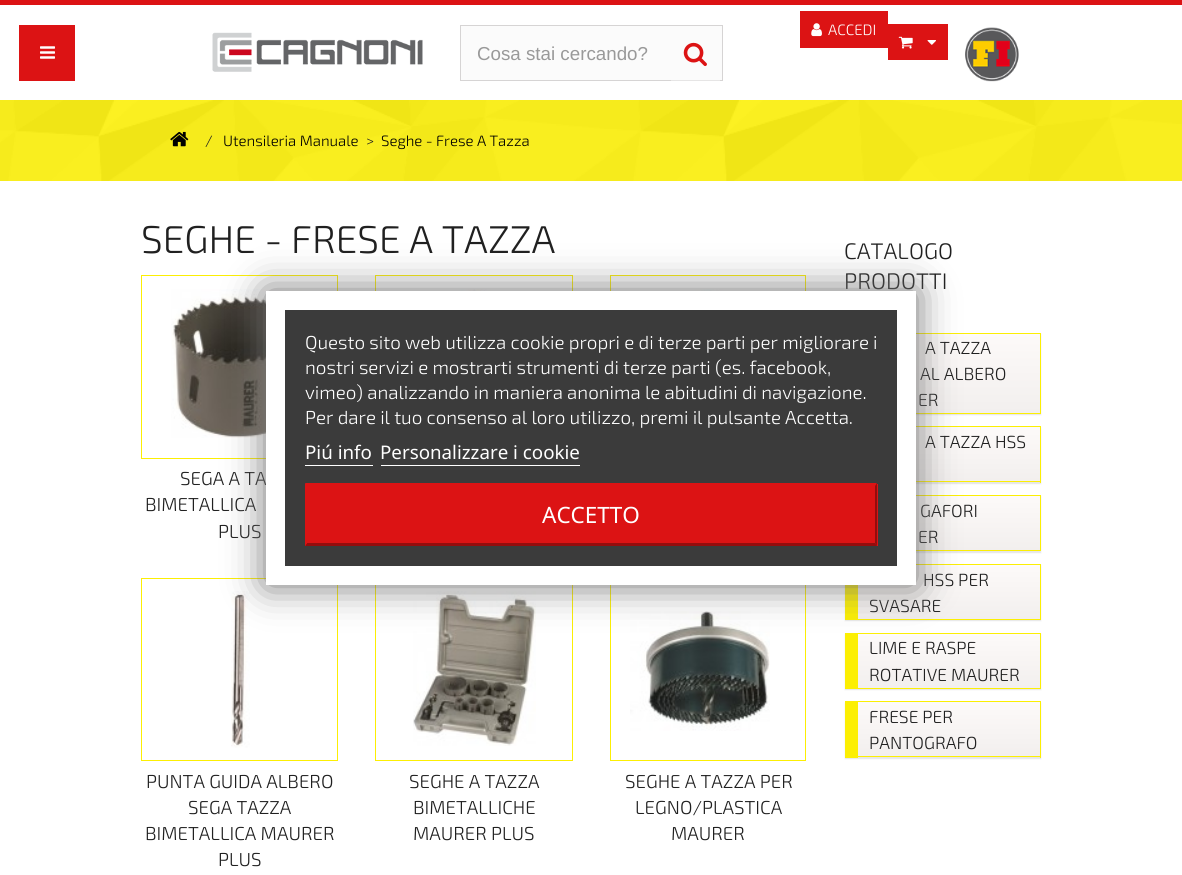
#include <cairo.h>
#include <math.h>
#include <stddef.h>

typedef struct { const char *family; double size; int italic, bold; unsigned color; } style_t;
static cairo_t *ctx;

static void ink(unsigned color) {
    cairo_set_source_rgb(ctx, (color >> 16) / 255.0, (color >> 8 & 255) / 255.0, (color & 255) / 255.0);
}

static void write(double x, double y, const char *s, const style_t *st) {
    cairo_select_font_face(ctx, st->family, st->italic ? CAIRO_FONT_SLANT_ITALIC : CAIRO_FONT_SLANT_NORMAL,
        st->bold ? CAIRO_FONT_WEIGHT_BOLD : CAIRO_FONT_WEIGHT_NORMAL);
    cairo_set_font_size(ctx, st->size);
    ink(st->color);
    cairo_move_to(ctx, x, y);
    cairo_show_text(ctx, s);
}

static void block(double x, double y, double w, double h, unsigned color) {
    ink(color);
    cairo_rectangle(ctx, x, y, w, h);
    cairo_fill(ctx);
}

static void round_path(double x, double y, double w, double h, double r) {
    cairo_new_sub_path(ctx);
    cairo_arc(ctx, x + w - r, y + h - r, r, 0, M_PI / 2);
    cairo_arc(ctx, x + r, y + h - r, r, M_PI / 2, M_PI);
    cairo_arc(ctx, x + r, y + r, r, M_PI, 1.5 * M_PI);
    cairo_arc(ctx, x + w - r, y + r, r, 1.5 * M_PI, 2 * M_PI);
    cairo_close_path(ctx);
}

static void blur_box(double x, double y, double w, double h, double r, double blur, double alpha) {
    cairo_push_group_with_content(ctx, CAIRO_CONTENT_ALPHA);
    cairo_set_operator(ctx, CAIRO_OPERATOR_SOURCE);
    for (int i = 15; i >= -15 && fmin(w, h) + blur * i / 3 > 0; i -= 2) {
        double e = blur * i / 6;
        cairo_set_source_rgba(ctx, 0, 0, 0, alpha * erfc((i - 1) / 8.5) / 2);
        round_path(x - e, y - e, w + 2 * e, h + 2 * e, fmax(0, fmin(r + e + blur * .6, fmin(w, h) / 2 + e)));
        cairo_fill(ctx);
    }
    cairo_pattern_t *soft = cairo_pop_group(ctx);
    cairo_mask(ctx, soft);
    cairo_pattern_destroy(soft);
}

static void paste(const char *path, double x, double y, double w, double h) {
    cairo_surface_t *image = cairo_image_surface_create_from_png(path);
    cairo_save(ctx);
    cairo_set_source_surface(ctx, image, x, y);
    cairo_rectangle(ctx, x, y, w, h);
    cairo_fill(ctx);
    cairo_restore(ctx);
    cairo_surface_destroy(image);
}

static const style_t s1 = {"Exo 2 Light", 15, 0, 0, 0xffffff};
static const style_t s2 = {"Liberation Sans", 18.75, 0, 0, 0x999999};
static const style_t s3 = {"Exo 2 Light", 15, 0, 0, 0x202020};
static const style_t s4 = {"Exo 2 Light", 15, 0, 0, 0x000000};
static const style_t s5 = {"Exo 2 Light", 38.75, 0, 0, 0x202020};
static const style_t s6 = {"Exo 2 Light", 18.75, 0, 0, 0x202020};
static const style_t s7 = {"Exo 2 Light", 22.5, 0, 0, 0x202020};
static const style_t s8 = {"Exo 2 Light", 17.5, 0, 0, 0x202020};
static const style_t s9 = {"Exo 2 Light", 18.75, 0, 0, 0xffffff};
static const style_t s10 = {"Noto Sans", 18.75, 0, 0, 0xffffff};
static const style_t s11 = {"Noto Sans", 22.5, 0, 0, 0xffffff};

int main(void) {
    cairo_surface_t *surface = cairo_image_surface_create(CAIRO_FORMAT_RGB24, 1182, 875);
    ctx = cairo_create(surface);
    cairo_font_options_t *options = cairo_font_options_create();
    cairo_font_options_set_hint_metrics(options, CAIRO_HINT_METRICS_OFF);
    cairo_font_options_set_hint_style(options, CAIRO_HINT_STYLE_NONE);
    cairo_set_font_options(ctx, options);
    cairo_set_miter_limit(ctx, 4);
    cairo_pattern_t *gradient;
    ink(0xffffff);
    cairo_paint(ctx);
    block(0, 0, 1182, 5, 0xdc1314);
    block(19, 25, 56, 56, 0xdc1314);
    paste("pic1.png", 40, 46, 15, 13);
    block(800, 11, 88, 37, 0xdc1314);
    paste("pic2.png", 811, 23, 11, 14);
    write(828, 35, "ACCEDI", &s1);
    block(888, 24, 60, 36, 0xdc1314);
    paste("pic3.png", 898, 36, 15, 13);
    paste("pic4.png", 927, 40, 9, 5);
    paste("pic5.png", 965, 27, 54, 55);
    paste("pic6.png", 212, 32, 211, 40);
    ink(0xfbfbfb);
    cairo_rectangle(ctx, 460.5, 25.5, 262, 55);
    cairo_fill_preserve(ctx);
    ink(0xd6d4d4);
    cairo_set_line_width(ctx, 1);
    cairo_stroke(ctx);
    write(477, 60, "Cosa stai cercando?", &s2);
    cairo_set_source_rgba(ctx, 1, 1, 1, 0.4);
    cairo_rectangle(ctx, 671, 80, 49, 1);
    cairo_fill(ctx);
    paste("pic7.png", 683, 42, 24, 25);
    block(0, 100, 1182, 81, 0xfcef03);
    paste("pic8.png", 0, 100, 1182, 81);
    paste("pic9.png", 170, 131, 19, 16);
    write(205, 146, "/", &s3);
    write(223, 146, "Utensileria Manuale", &s4);
    write(366, 146, ">", &s3);
    write(381, 146, "Seghe - Frese A Tazza", &s4);
    write(141, 253, "SEGHE - FRESE A TAZZA", &s5);
    cairo_rectangle(ctx, 375.5, 275.5, 197, 183);
    ink(0xfcef03);
    cairo_stroke(ctx);
    paste("pic10.png", 457, 289, 38, 2);
    cairo_rectangle(ctx, 610.5, 275.5, 195, 183);
    cairo_stroke(ctx);
    paste("pic11.png", 690, 289, 40, 2);
    cairo_rectangle(ctx, 141.5, 275.5, 196, 183);
    cairo_stroke(ctx);
    paste("pic12.png", 171, 289, 139, 149);
    write(180, 485, "SEGA A TA", &s6);
    write(145, 511, "BIMETALLICA", &s6);
    write(218, 538, "PLUS", &s6);
    cairo_rectangle(ctx, 141.5, 578.5, 196, 182);
    ink(0xfcef03);
    cairo_stroke(ctx);
    paste("pic13.png", 231, 591, 19, 157);
    write(146, 788, "PUNTA GUIDA ALBERO", &s6);
    write(188, 814, "SEGA TAZZA", &s6);
    write(145, 840, "BIMETALLICA MAURER", &s6);
    write(218, 866, "PLUS", &s6);
    cairo_rectangle(ctx, 375.5, 578.5, 197, 182);
    ink(0xfcef03);
    cairo_stroke(ctx);
    paste("pic14.png", 413, 591, 123, 155);
    write(409, 788, "SEGHE A TAZZA", &s6);
    write(413, 814, "BIMETALLICHE", &s6);
    write(413, 840, "MAURER PLUS", &s6);
    cairo_rectangle(ctx, 610.5, 578.5, 195, 182);
    ink(0xfcef03);
    cairo_stroke(ctx);
    paste("pic15.png", 630, 611, 140, 120);
    write(625, 788, "SEGHE A TAZZA PER", &s6);
    write(635, 814, "LEGNO/PLASTICA", &s6);
    write(671, 840, "MAURER", &s6);
    write(844, 259, "CATALOGO", &s7);
    write(844, 289, "PRODOTTI", &s7);
    ink(0x000000);
    blur_box(845, 334, 196, 81, 0, 0.5, 0.1);
    gradient = cairo_pattern_create_linear(949, 334, 949, 413);
    cairo_pattern_add_color_stop_rgba(gradient, 0, 0.992, 0.98, 0.976, 1);
    cairo_pattern_add_color_stop_rgba(gradient, 1, 0.949, 0.937, 0.933, 1);
    cairo_set_source(ctx, gradient);
    cairo_pattern_destroy(gradient);
    cairo_rectangle(ctx, 916, 334, 124, 79);
    cairo_fill(ctx);
    block(916, 333, 125, 1, 0xfcef03);
    block(1040, 333, 1, 81, 0xfcef03);
    block(916, 413, 125, 1, 0xfcef03);
    write(925, 354, "A TAZZA", &s8);
    write(920, 380, "AL ALBERO", &s8);
    write(918, 406, "ER", &s8);
    ink(0x000000);
    blur_box(845, 428, 196, 56, 0, 0.5, 0.1);
    gradient = cairo_pattern_create_linear(949, 428, 949, 481);
    cairo_pattern_add_color_stop_rgba(gradient, 0, 0.992, 0.98, 0.976, 1);
    cairo_pattern_add_color_stop_rgba(gradient, 1, 0.949, 0.937, 0.933, 1);
    cairo_set_source(ctx, gradient);
    cairo_pattern_destroy(gradient);
    cairo_rectangle(ctx, 916, 428, 124, 53);
    cairo_fill(ctx);
    block(916, 426, 125, 1, 0xfcef03);
    block(1040, 426, 1, 57, 0xfcef03);
    block(916, 481, 125, 1, 0xfcef03);
    write(925, 448, "A TAZZA HSS", &s8);
    ink(0x000000);
    blur_box(845, 496, 196, 57, 0, 0.5, 0.1);
    gradient = cairo_pattern_create_linear(949, 496, 949, 550);
    cairo_pattern_add_color_stop_rgba(gradient, 0, 0.992, 0.98, 0.976, 1);
    cairo_pattern_add_color_stop_rgba(gradient, 1, 0.949, 0.937, 0.933, 1);
    cairo_set_source(ctx, gradient);
    cairo_pattern_destroy(gradient);
    cairo_rectangle(ctx, 916, 496, 124, 54);
    cairo_fill(ctx);
    block(916, 495, 125, 1, 0xfcef03);
    block(1040, 495, 1, 56, 0xfcef03);
    block(916, 550, 125, 1, 0xfcef03);
    write(920, 517, "GAFORI", &s8);
    write(918, 543, "ER", &s8);
    ink(0x000000);
    blur_box(845, 565, 196, 56, 0, 0.5, 0.1);
    gradient = cairo_pattern_create_linear(949, 565, 949, 619);
    cairo_pattern_add_color_stop_rgba(gradient, 0, 0.992, 0.98, 0.976, 1);
    cairo_pattern_add_color_stop_rgba(gradient, 1, 0.949, 0.937, 0.933, 1);
    cairo_set_source(ctx, gradient);
    cairo_pattern_destroy(gradient);
    cairo_rectangle(ctx, 858, 565, 182, 54);
    cairo_fill(ctx);
    block(916, 564, 125, 1, 0xfcef03);
    block(1040, 564, 1, 56, 0xfcef03);
    block(858, 619, 183, 1, 0xfcef03);
    block(845, 585, 13, 35, 0xfcef03);
    write(923, 586, "HSS PER", &s8);
    write(869, 612, "SVASARE", &s8);
    ink(0x000000);
    blur_box(845, 634, 196, 56, 0, 0.5, 0.1);
    gradient = cairo_pattern_create_linear(949, 634, 949, 688);
    cairo_pattern_add_color_stop_rgba(gradient, 0, 0.992, 0.98, 0.976, 1);
    cairo_pattern_add_color_stop_rgba(gradient, 1, 0.949, 0.937, 0.933, 1);
    cairo_set_source(ctx, gradient);
    cairo_pattern_destroy(gradient);
    cairo_rectangle(ctx, 858, 634, 182, 54);
    cairo_fill(ctx);
    block(858, 633, 183, 1, 0xfcef03);
    block(1040, 633, 1, 56, 0xfcef03);
    block(858, 688, 183, 1, 0xfcef03);
    block(845, 633, 13, 56, 0xfcef03);
    write(869, 654, "LIME E RASPE", &s8);
    write(869, 681, "ROTATIVE MAURER", &s8);
    ink(0x000000);
    blur_box(845, 703, 196, 56, 0, 0.5, 0.1);
    gradient = cairo_pattern_create_linear(949, 703, 949, 756);
    cairo_pattern_add_color_stop_rgba(gradient, 0, 0.992, 0.98, 0.976, 1);
    cairo_pattern_add_color_stop_rgba(gradient, 1, 0.949, 0.937, 0.933, 1);
    cairo_set_source(ctx, gradient);
    cairo_pattern_destroy(gradient);
    cairo_rectangle(ctx, 858, 703, 182, 53);
    cairo_fill(ctx);
    block(858, 701, 183, 1, 0xfcef03);
    block(1040, 701, 1, 57, 0xfcef03);
    block(858, 756, 183, 1, 0xfcef03);
    block(845, 701, 13, 57, 0xfcef03);
    write(869, 723, "FRESE PER", &s8);
    write(869, 749, "PANTOGRAFO", &s8);
    ink(0x707070);
    blur_box(266, 291, 650, 294, 0, 19, 1);
    ink(0x3b3b3b);
    cairo_rectangle(ctx, 275.5, 300.5, 631, 275);
    cairo_fill_preserve(ctx);
    ink(0xffffff);
    cairo_set_line_width(ctx, 19);
    cairo_stroke(ctx);
    write(305, 349, "Questo sito web utilizza cookie propri e di terze parti per migliorare i", &s9);
    write(305, 374, "nostri servizi e mostrarti strumenti di terze parti (es. facebook,", &s9);
    write(305, 399, "vimeo) analizzando in maniera anonima le abitudini di navigazione.", &s9);
    write(305, 424, "Per dare il tuo consenso al loro utilizzo, premi il pulsante Accetta.", &s9);
    write(305, 459, "Piú info", &s10);
    block(305, 465, 68, 1, 0xffffff);
    write(380, 459, "Personalizzare i cookie", &s10);
    block(381, 465, 199, 1, 0xffffff);
    block(305, 484, 573, 62, 0xdc1314);
    cairo_new_path(ctx);
    cairo_move_to(ctx, 305, 483);
    cairo_line_to(ctx, 877, 483);
    cairo_line_to(ctx, 875, 486);
    cairo_line_to(ctx, 307, 486);
    cairo_close_path(ctx);
    cairo_fill(ctx);
    ink(0x930d0d);
    cairo_new_path(ctx);
    cairo_move_to(ctx, 877, 483);
    cairo_line_to(ctx, 877, 546);
    cairo_line_to(ctx, 875, 543);
    cairo_line_to(ctx, 875, 486);
    cairo_close_path(ctx);
    cairo_fill(ctx);
    cairo_new_path(ctx);
    cairo_move_to(ctx, 877, 546);
    cairo_line_to(ctx, 305, 546);
    cairo_line_to(ctx, 307, 543);
    cairo_line_to(ctx, 875, 543);
    cairo_close_path(ctx);
    cairo_fill(ctx);
    ink(0xdc1314);
    cairo_new_path(ctx);
    cairo_move_to(ctx, 305, 546);
    cairo_line_to(ctx, 305, 483);
    cairo_line_to(ctx, 307, 486);
    cairo_line_to(ctx, 307, 543);
    cairo_close_path(ctx);
    cairo_fill(ctx);
    write(542, 523, "ACCETTO", &s11);
    cairo_surface_write_to_png(surface, "screenshot.png");
    cairo_font_options_destroy(options);
    cairo_destroy(ctx);
    cairo_surface_destroy(surface);
    return 0;
}
